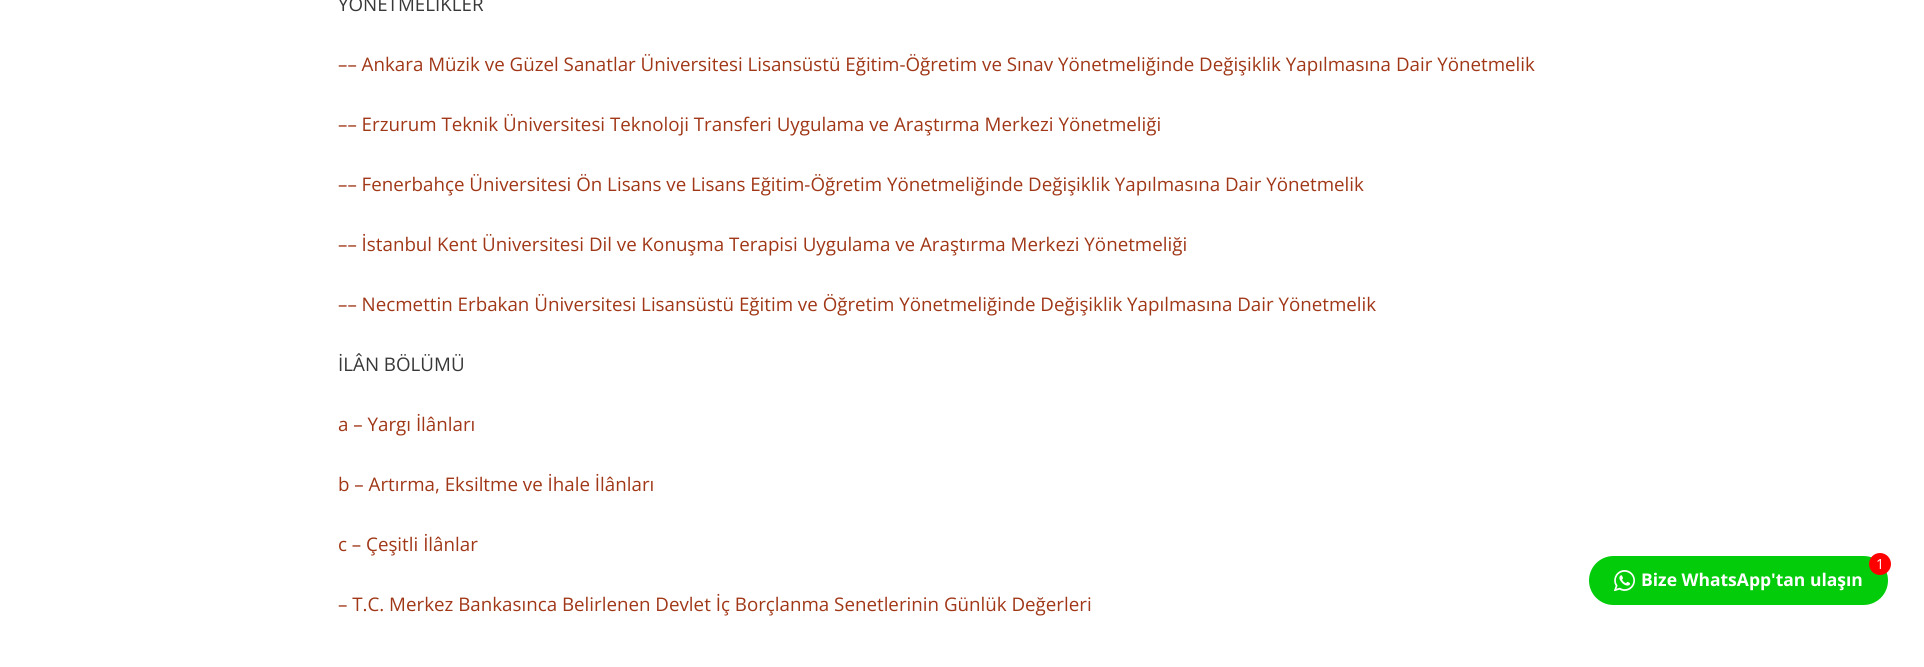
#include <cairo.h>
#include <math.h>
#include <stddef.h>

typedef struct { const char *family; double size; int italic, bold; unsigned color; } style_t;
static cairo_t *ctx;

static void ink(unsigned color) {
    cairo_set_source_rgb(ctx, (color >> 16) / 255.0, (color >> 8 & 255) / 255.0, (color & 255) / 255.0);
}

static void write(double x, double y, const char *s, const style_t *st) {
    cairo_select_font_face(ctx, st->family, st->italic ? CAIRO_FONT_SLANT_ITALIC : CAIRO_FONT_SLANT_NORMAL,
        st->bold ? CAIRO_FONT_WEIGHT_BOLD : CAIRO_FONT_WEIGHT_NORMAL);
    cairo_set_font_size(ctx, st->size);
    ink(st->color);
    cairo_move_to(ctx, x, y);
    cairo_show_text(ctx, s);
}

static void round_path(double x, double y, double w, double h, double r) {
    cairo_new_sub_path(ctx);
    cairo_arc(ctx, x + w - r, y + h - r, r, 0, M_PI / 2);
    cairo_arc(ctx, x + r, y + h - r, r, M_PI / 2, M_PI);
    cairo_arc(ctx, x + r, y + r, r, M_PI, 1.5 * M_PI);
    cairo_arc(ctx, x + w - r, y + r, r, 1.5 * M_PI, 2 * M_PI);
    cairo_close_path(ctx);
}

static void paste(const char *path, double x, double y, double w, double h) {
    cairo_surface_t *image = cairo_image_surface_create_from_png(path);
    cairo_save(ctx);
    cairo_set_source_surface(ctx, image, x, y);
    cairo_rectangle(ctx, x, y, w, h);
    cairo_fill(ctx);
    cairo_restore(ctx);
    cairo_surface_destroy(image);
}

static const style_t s1 = {"Open Sans", 18.75, 0, 0, 0x383838};
static const style_t s2 = {"Open Sans", 18.75, 0, 0, 0xa03717};
static const style_t s3 = {"Open Sans", 14, 0, 0, 0xffffff};
static const style_t s4 = {"Open Sans", 17.5, 0, 1, 0xffffff};

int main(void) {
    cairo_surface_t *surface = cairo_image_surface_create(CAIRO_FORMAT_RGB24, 1924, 667);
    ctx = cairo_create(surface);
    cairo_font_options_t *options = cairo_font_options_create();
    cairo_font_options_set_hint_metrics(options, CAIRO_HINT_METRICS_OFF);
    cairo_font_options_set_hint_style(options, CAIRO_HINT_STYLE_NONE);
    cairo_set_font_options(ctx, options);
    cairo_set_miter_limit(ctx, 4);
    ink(0xffffff);
    cairo_paint(ctx);
    write(338, 11, "YÖNETMELİKLER", &s1);
    write(338, 71, "–– Ankara Müzik ve Güzel Sanatlar Üniversitesi Lisansüstü Eğitim-Öğretim ve Sınav Yönetmeliğinde Değişiklik Yapılmasına Dair Yönetmelik", &s2);
    write(338, 131, "–– Erzurum Teknik Üniversitesi Teknoloji Transferi Uygulama ve Araştırma Merkezi Yönetmeliği", &s2);
    write(338, 191, "–– Fenerbahçe Üniversitesi Ön Lisans ve Lisans Eğitim-Öğretim Yönetmeliğinde Değişiklik Yapılmasına Dair Yönetmelik", &s2);
    write(338, 251, "–– İstanbul Kent Üniversitesi Dil ve Konuşma Terapisi Uygulama ve Araştırma Merkezi Yönetmeliği", &s2);
    write(338, 311, "–– Necmettin Erbakan Üniversitesi Lisansüstü Eğitim ve Öğretim Yönetmeliğinde Değişiklik Yapılmasına Dair Yönetmelik", &s2);
    write(338, 371, "İLÂN BÖLÜMÜ", &s1);
    write(338, 431, "a – Yargı İlânları", &s2);
    write(338, 491, "b – Artırma, Eksiltme ve İhale İlânları", &s2);
    write(338, 551, "c – Çeşitli İlânlar", &s2);
    write(338, 611, "– T.C. Merkez Bankasınca Belirlenen Devlet İç Borçlanma Senetlerinin Günlük Değerleri", &s2);
    ink(0x03cc0b);
    round_path(1589, 556, 299, 49, 24.5);
    cairo_fill(ctx);
    ink(0xff0000);
    cairo_arc(ctx, 1880, 564, 11, 0, 2 * M_PI);
    cairo_fill(ctx);
    write(1876, 569, "1", &s3);
    paste("pic1.png", 1614, 570, 21, 21);
    write(1641, 586, "Bize WhatsApp'tan ulaşın", &s4);
    cairo_surface_write_to_png(surface, "screenshot.png");
    cairo_font_options_destroy(options);
    cairo_destroy(ctx);
    cairo_surface_destroy(surface);
    return 0;
}
